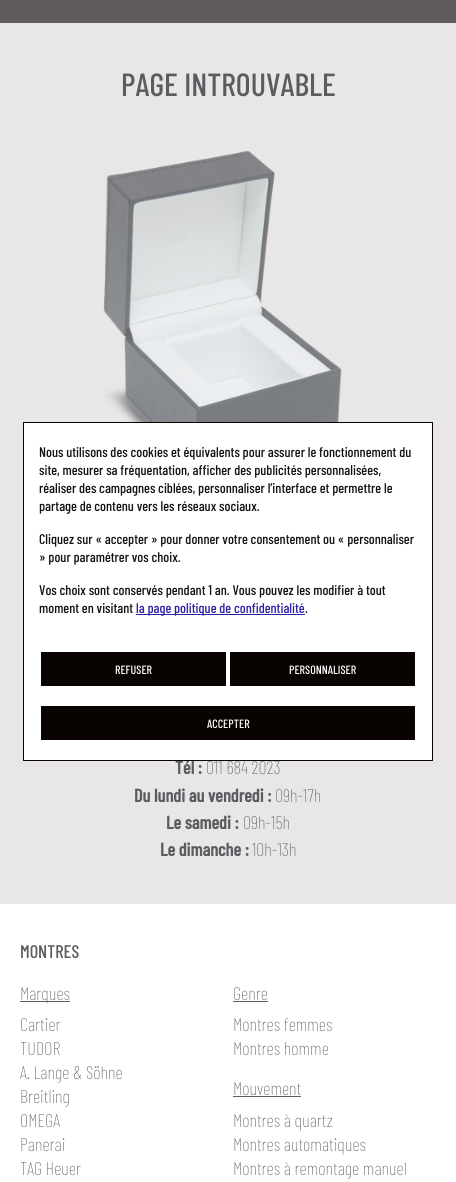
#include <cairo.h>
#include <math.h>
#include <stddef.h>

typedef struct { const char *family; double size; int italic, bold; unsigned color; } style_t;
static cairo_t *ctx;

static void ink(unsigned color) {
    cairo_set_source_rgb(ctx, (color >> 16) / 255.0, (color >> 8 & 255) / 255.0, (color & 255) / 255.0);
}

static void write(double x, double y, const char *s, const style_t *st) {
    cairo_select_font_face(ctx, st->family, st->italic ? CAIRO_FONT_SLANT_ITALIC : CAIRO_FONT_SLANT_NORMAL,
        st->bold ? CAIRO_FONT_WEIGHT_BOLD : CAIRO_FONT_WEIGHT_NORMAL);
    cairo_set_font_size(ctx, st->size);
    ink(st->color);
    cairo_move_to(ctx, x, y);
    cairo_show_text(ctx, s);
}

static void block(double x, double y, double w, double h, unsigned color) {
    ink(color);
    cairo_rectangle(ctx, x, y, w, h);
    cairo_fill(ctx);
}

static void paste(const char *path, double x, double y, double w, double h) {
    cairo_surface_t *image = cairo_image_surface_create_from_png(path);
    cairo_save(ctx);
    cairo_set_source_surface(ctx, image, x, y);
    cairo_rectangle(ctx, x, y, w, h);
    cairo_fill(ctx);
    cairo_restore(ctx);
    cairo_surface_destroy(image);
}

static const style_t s1 = {"Barlow Condensed Medium", 32, 0, 0, 0x595d60};
static const style_t s2 = {"Barlow Condensed", 18.25, 0, 1, 0x595d60};
static const style_t s3 = {"Barlow Condensed Thin", 18.25, 0, 0, 0x595d60};
static const style_t s4 = {"Barlow Condensed Medium", 18.25, 0, 0, 0x595d60};
static const style_t s5 = {"Barlow Condensed Medium", 14, 0, 0, 0x131313};
static const style_t s6 = {"Barlow Condensed Medium", 14, 0, 0, 0x2c21a2};
static const style_t s7 = {"Barlow Condensed Medium", 12, 0, 0, 0xffffff};

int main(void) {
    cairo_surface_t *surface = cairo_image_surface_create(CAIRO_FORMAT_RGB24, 456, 1182);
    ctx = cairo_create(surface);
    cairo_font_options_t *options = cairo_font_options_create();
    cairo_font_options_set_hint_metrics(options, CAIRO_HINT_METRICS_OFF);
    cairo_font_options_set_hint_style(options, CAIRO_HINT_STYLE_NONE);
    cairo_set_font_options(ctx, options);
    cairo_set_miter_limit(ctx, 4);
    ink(0xffffff);
    cairo_paint(ctx);
    block(0, 0, 456, 23, 0x5f5b5a);
    block(0, 23, 456, 881, 0xe8e6e7);
    write(121, 96, "PAGE INTROUVABLE", &s1);
    paste("pic1.png", 103, 150, 239, 272);
    write(175, 774, "Tél :", &s2);
    write(206, 774, "011 684 2023", &s3);
    write(134, 802, "Du lundi au vendredi :", &s2);
    write(275, 802, "09h-17h", &s3);
    write(166, 829, "Le samedi :", &s2);
    write(243, 829, "09h-15h", &s3);
    write(160, 856, "Le dimanche :", &s2);
    write(252, 856, "10h-13h", &s3);
    write(20, 958, "MONTRES", &s4);
    block(20, 1001, 50, 1, 0x595d60);
    write(20, 1000, "Marques", &s3);
    write(20, 1031, "Cartier", &s3);
    write(20, 1055, "TUDOR", &s3);
    write(20, 1079, "A. Lange & Söhne", &s3);
    write(20, 1103, "Breitling", &s3);
    write(20, 1127, "OMEGA", &s3);
    write(20, 1151, "Panerai", &s3);
    write(20, 1175, "TAG Heuer", &s3);
    write(233, 1000, "Genre", &s3);
    block(233, 1001, 35, 1, 0x595d60);
    write(233, 1031, "Montres femmes", &s3);
    write(233, 1055, "Montres homme", &s3);
    write(233, 1095, "Mouvement", &s3);
    block(233, 1096, 68, 1, 0x595d60);
    write(233, 1127, "Montres à quartz", &s3);
    write(233, 1151, "Montres automatiques", &s3);
    write(233, 1175, "Montres à remontage manuel", &s3);
    ink(0xffffff);
    cairo_rectangle(ctx, 23.5, 422.5, 409, 338);
    cairo_fill_preserve(ctx);
    ink(0x090301);
    cairo_set_line_width(ctx, 1);
    cairo_stroke(ctx);
    write(39, 457, "Nous utilisons des cookies et équivalents pour assurer le fonctionnement du", &s5);
    write(39, 475, "site, mesurer sa fréquentation, afficher des publicités personnalisées,", &s5);
    write(39, 493, "réaliser des campagnes ciblées, personnaliser l’interface et permettre le", &s5);
    write(39, 511, "partage de contenu vers les réseaux sociaux.", &s5);
    write(39, 544, "Cliquez sur « accepter » pour donner votre consentement ou « personnaliser", &s5);
    write(39, 562, "» pour paramétrer vos choix.", &s5);
    write(39, 595, "Vos choix sont conservés pendant 1 an. Vous pouvez les modifier à tout", &s5);
    write(39, 613, "moment en visitant", &s5);
    block(136, 614, 169, 1, 0x2c21a2);
    write(136, 613, "la page politique de confidentialité", &s6);
    write(305, 613, ".", &s5);
    block(41, 652, 185, 34, 0x090301);
    write(115, 674, "REFUSER", &s7);
    block(230, 652, 185, 34, 0x090301);
    write(289, 674, "PERSONNALISER", &s7);
    block(41, 706, 374, 34, 0x090301);
    write(207, 728, "ACCEPTER", &s7);
    cairo_surface_write_to_png(surface, "screenshot.png");
    cairo_font_options_destroy(options);
    cairo_destroy(ctx);
    cairo_surface_destroy(surface);
    return 0;
}
